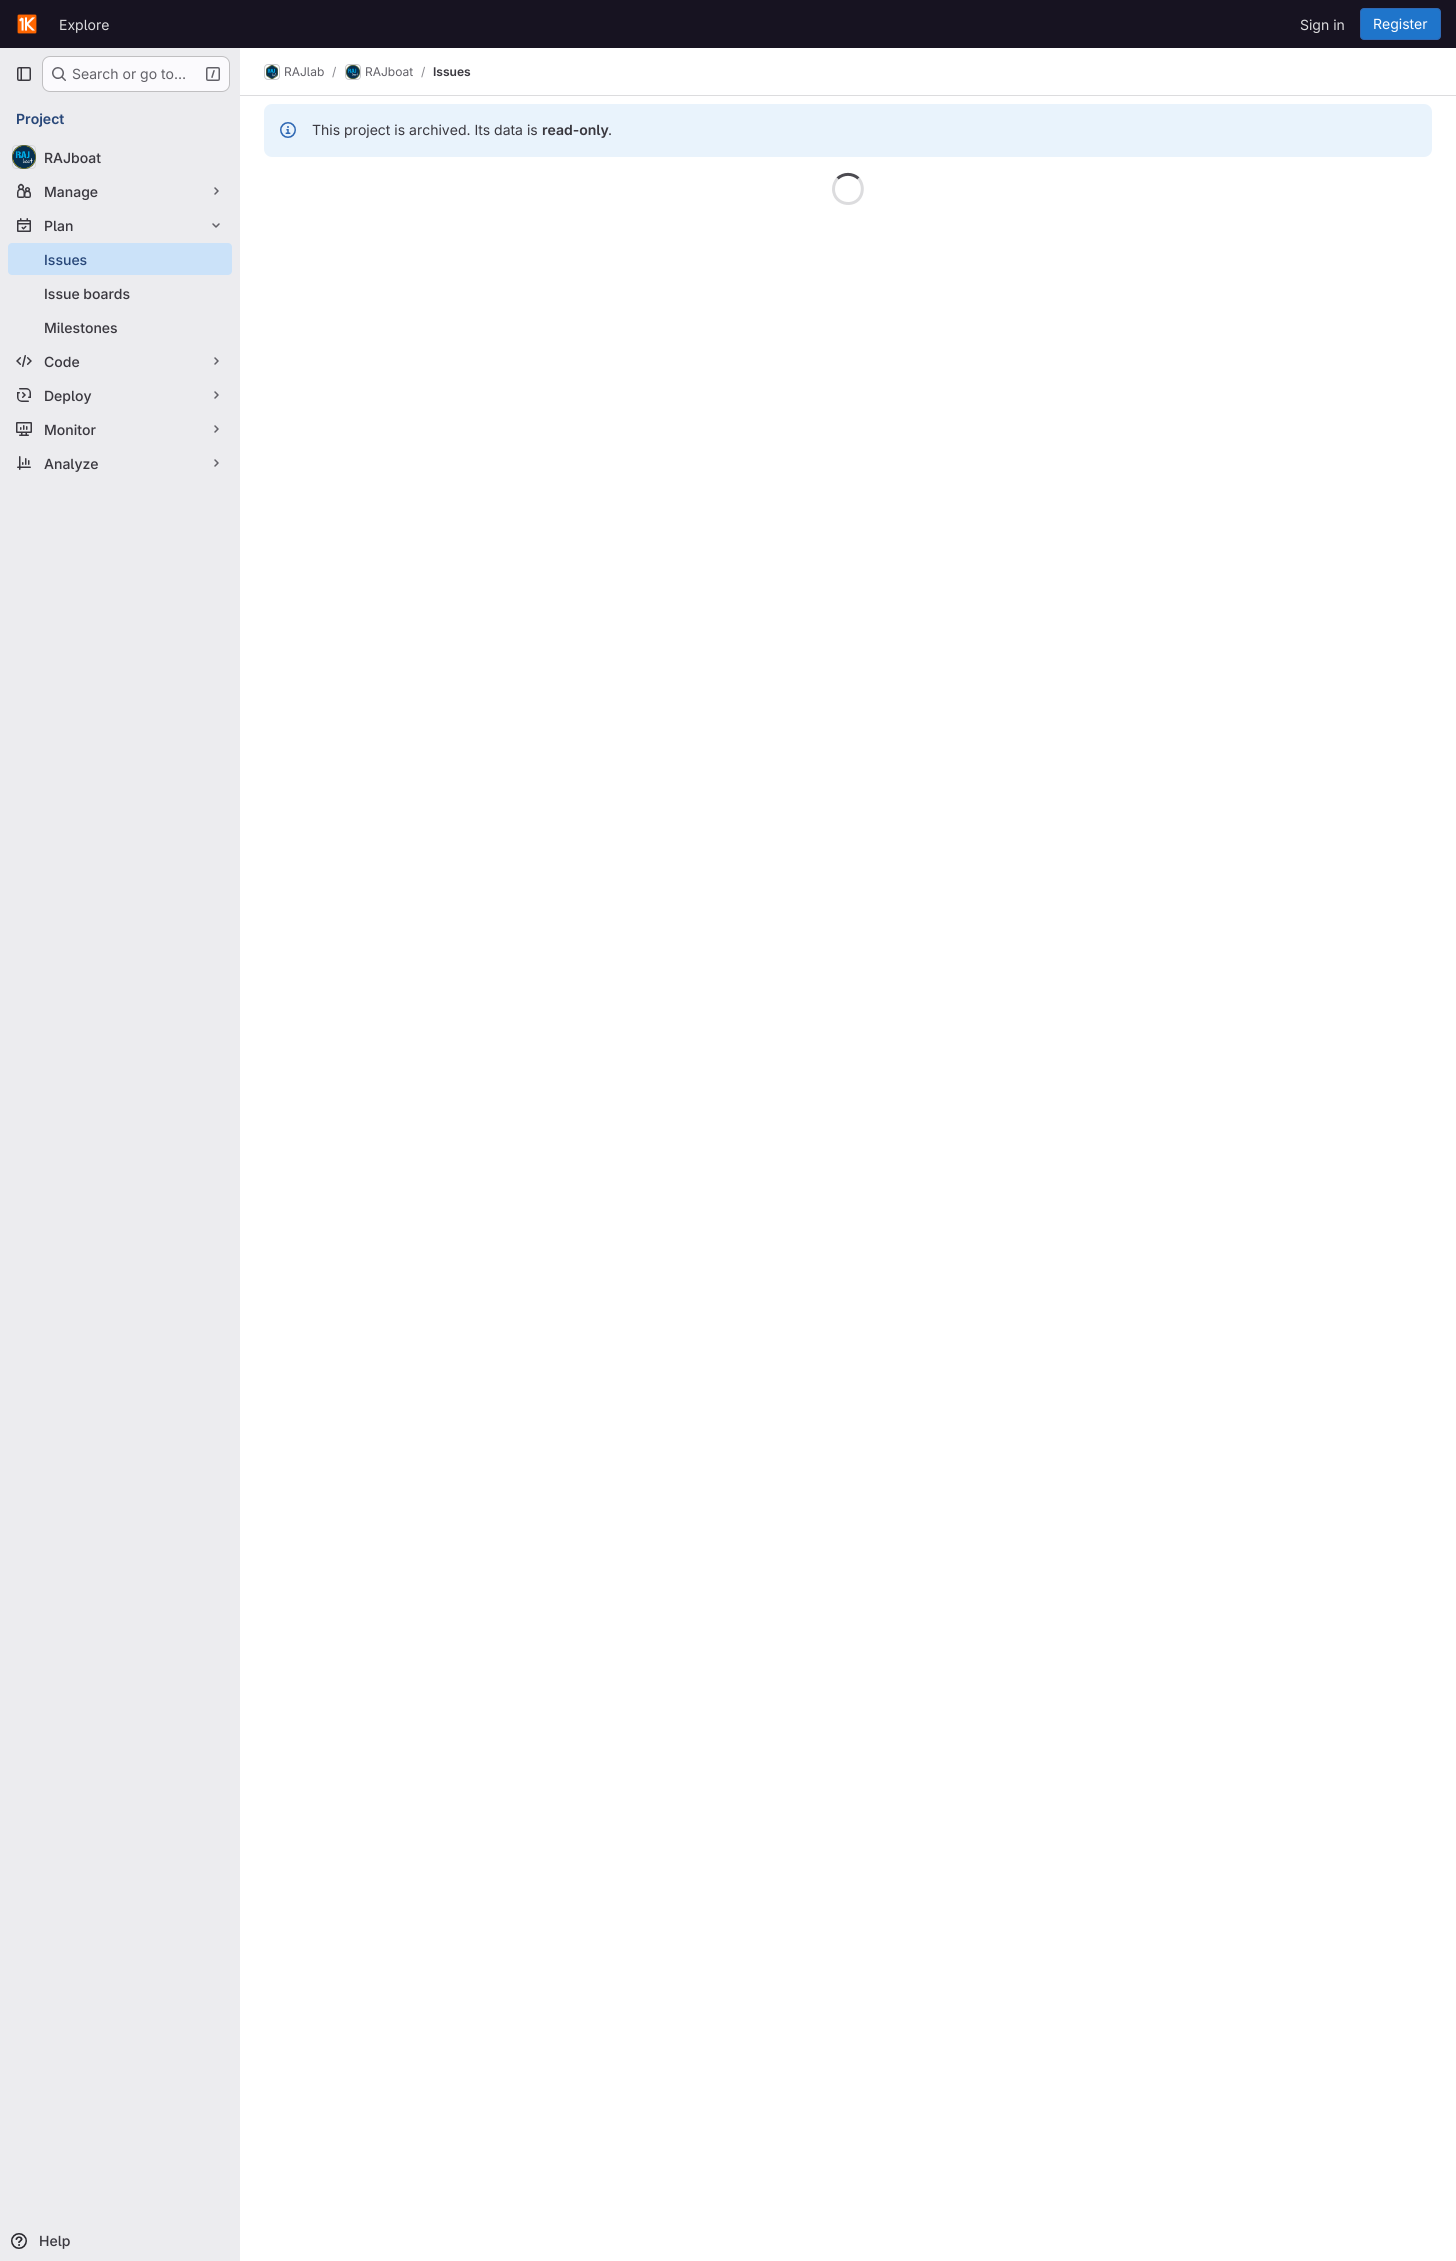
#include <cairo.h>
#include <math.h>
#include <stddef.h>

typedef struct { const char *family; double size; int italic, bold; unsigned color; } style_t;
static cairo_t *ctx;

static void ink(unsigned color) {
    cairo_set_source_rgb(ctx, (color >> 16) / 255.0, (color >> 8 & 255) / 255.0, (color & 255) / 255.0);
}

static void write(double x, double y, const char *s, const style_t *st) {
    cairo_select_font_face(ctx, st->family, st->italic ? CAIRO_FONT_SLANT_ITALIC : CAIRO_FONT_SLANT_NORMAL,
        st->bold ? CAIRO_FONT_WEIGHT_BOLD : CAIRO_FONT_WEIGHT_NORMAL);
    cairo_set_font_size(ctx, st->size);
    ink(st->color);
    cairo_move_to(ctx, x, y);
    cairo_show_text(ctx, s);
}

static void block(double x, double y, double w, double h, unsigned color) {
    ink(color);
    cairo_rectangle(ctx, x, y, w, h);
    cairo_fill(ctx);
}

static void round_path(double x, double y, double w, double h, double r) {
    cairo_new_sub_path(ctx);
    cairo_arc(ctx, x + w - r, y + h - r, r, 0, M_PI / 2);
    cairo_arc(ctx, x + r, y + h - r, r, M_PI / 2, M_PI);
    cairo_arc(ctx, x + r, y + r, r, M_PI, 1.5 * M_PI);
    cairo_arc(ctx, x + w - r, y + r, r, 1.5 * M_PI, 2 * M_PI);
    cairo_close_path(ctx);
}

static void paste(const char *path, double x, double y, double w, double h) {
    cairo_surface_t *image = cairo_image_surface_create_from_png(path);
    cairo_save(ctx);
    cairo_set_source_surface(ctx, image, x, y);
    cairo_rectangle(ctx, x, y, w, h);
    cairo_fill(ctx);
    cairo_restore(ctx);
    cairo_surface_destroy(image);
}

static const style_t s1 = {"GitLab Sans", 14, 0, 0, 0xdcdcde};
static const style_t s2 = {"GitLab Sans", 14, 0, 0, 0xffffff};
static const style_t s3 = {"GitLab Sans", 14, 0, 0, 0x626168};
static const style_t s4 = {"GitLab Sans SemiBold", 14, 0, 0, 0x284779};
static const style_t s5 = {"GitLab Sans Medium", 14, 0, 0, 0x3a383f};
static const style_t s6 = {"GitLab Sans Medium", 14, 0, 0, 0x284779};
static const style_t s7 = {"GitLab Sans", 12, 0, 0, 0x626168};
static const style_t s8 = {"GitLab Sans", 12, 0, 0, 0x89888d};
static const style_t s9 = {"GitLab Sans SemiBold", 12, 0, 0, 0x3a383f};
static const style_t s10 = {"GitLab Sans", 14, 0, 0, 0x3a383f};
static const style_t s11 = {"GitLab Sans SemiBold", 14, 0, 0, 0x3a383f};

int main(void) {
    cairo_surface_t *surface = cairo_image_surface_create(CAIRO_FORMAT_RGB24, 1456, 2261);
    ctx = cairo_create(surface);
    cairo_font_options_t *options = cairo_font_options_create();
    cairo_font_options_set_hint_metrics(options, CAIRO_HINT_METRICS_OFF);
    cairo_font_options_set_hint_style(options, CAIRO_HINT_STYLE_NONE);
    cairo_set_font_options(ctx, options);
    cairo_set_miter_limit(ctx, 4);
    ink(0xffffff);
    cairo_paint(ctx);
    block(0, 0, 1456, 48, 0x171321);
    paste("pic1.png", 17, 14, 20, 20);
    write(59, 30, "Explore", &s1);
    write(1300, 30, "Sign in", &s1);
    ink(0x1f75cb);
    round_path(1360.5, 8.5, 80, 31, 3.5);
    cairo_fill_preserve(ctx);
    ink(0x2f68b4);
    cairo_set_line_width(ctx, 1);
    cairo_stroke(ctx);
    write(1373, 29, "Register", &s2);
    block(0, 48, 240, 2213, 0xececef);
    paste("pic2.png", 17, 67, 14, 14);
    ink(0xfbfafd);
    round_path(42, 56, 188, 36, 8);
    cairo_fill(ctx);
    round_path(42.5, 56.5, 187, 35, 7.5);
    cairo_set_source_rgba(ctx, 0.02, 0.02, 0.024, 0.24);
    cairo_stroke(ctx);
    paste("pic3.png", 52, 67, 14, 14);
    write(72, 79, "Search or go to…", &s3);
    paste("pic4.png", 206, 67, 14, 14);
    write(16, 124, "Project", &s4);
    paste("pic5.png", 12, 145, 24, 24);
    round_path(12.5, 145.5, 23, 23, 3.5);
    cairo_set_source_rgba(ctx, 0.02, 0.02, 0.024, 0.08);
    cairo_stroke(ctx);
    write(44, 163, "RAJboat", &s5);
    paste("pic6.png", 17, 183, 14, 15);
    write(44, 197, "Manage", &s5);
    cairo_new_path(ctx);
    cairo_move_to(ctx, 215, 188);
    cairo_line_to(ctx, 218, 191);
    cairo_line_to(ctx, 215, 194);
    ink(0x626168);
    cairo_set_line_width(ctx, 1.5);
    cairo_set_line_cap(ctx, CAIRO_LINE_CAP_ROUND);
    cairo_set_line_join(ctx, CAIRO_LINE_JOIN_ROUND);
    cairo_stroke(ctx);
    paste("pic7.png", 17, 218, 14, 14);
    write(44, 231, "Plan", &s5);
    cairo_new_path(ctx);
    cairo_move_to(ctx, 219, 224);
    cairo_line_to(ctx, 216, 227);
    cairo_line_to(ctx, 213, 224);
    ink(0x626168);
    cairo_stroke(ctx);
    ink(0xcbe2f9);
    round_path(8, 243, 224, 32, 4);
    cairo_fill(ctx);
    write(44, 265, "Issues", &s6);
    write(44, 299, "Issue boards", &s5);
    write(44, 333, "Milestones", &s5);
    paste("pic8.png", 16, 355, 16, 12);
    write(44, 367, "Code", &s5);
    cairo_new_path(ctx);
    cairo_move_to(ctx, 215, 358);
    cairo_line_to(ctx, 218, 361);
    cairo_line_to(ctx, 215, 364);
    ink(0x626168);
    cairo_stroke(ctx);
    paste("pic9.png", 17, 388, 14, 14);
    write(44, 401, "Deploy", &s5);
    cairo_new_path(ctx);
    cairo_move_to(ctx, 215, 392);
    cairo_line_to(ctx, 218, 395);
    cairo_line_to(ctx, 215, 398);
    ink(0x626168);
    cairo_stroke(ctx);
    paste("pic10.png", 16, 422, 16, 14);
    write(44, 435, "Monitor", &s5);
    cairo_new_path(ctx);
    cairo_move_to(ctx, 215, 426);
    cairo_line_to(ctx, 218, 429);
    cairo_line_to(ctx, 215, 432);
    ink(0x626168);
    cairo_stroke(ctx);
    paste("pic11.png", 17, 456, 14, 14);
    write(44, 469, "Analyze", &s5);
    cairo_new_path(ctx);
    cairo_move_to(ctx, 215, 460);
    cairo_line_to(ctx, 218, 463);
    cairo_line_to(ctx, 215, 466);
    ink(0x626168);
    cairo_stroke(ctx);
    paste("pic12.png", 11, 2233, 16, 16);
    write(39, 2246, "Help", &s5);
    block(240, 95, 1216, 1, 0xdcdcde);
    round_path(264.5, 64.5, 15, 15, 3.5);
    cairo_set_line_width(ctx, 1);
    cairo_set_line_cap(ctx, CAIRO_LINE_CAP_BUTT);
    cairo_set_line_join(ctx, CAIRO_LINE_JOIN_MITER);
    cairo_stroke(ctx);
    paste("pic13.png", 266, 65, 12, 14);
    round_path(264.5, 64.5, 15, 15, 3.5);
    cairo_set_source_rgba(ctx, 0.02, 0.02, 0.024, 0.08);
    cairo_stroke(ctx);
    write(284, 76, "RAJlab", &s7);
    write(332, 76, "/", &s8);
    round_path(345.5, 64.5, 15, 15, 3.5);
    ink(0xdcdcde);
    cairo_stroke(ctx);
    paste("pic14.png", 346, 65, 14, 14);
    round_path(345.5, 64.5, 15, 15, 3.5);
    cairo_set_source_rgba(ctx, 0.02, 0.02, 0.024, 0.08);
    cairo_stroke(ctx);
    write(365, 76, "RAJboat", &s7);
    write(421, 76, "/", &s8);
    write(433, 76, "Issues", &s9);
    ink(0xe9f3fc);
    round_path(264, 104, 1168, 53, 8);
    cairo_fill(ctx);
    paste("pic15.png", 280, 122, 16, 16);
    write(312, 135, "This project is archived. Its data is", &s10);
    write(542, 135, "read-only", &s11);
    write(608, 135, ".", &s10);
    cairo_new_path(ctx);
    cairo_move_to(ctx, 837.5, 178.5);
    cairo_curve_to(ctx, 843.5, 173, 852.5, 173, 858.5, 178.5);
    ink(0x4c4b51);
    cairo_set_line_width(ctx, 3);
    cairo_stroke(ctx);
    cairo_new_path(ctx);
    cairo_move_to(ctx, 858.5, 178.5);
    cairo_curve_to(ctx, 861.5, 182, 863, 187, 862, 192);
    cairo_curve_to(ctx, 859, 209, 833.5, 206.5, 833.5, 189);
    cairo_curve_to(ctx, 833.5, 185, 835, 181.5, 837.5, 178.5);
    ink(0xdcdcde);
    cairo_stroke(ctx);
    cairo_surface_write_to_png(surface, "screenshot.png");
    cairo_font_options_destroy(options);
    cairo_destroy(ctx);
    cairo_surface_destroy(surface);
    return 0;
}
